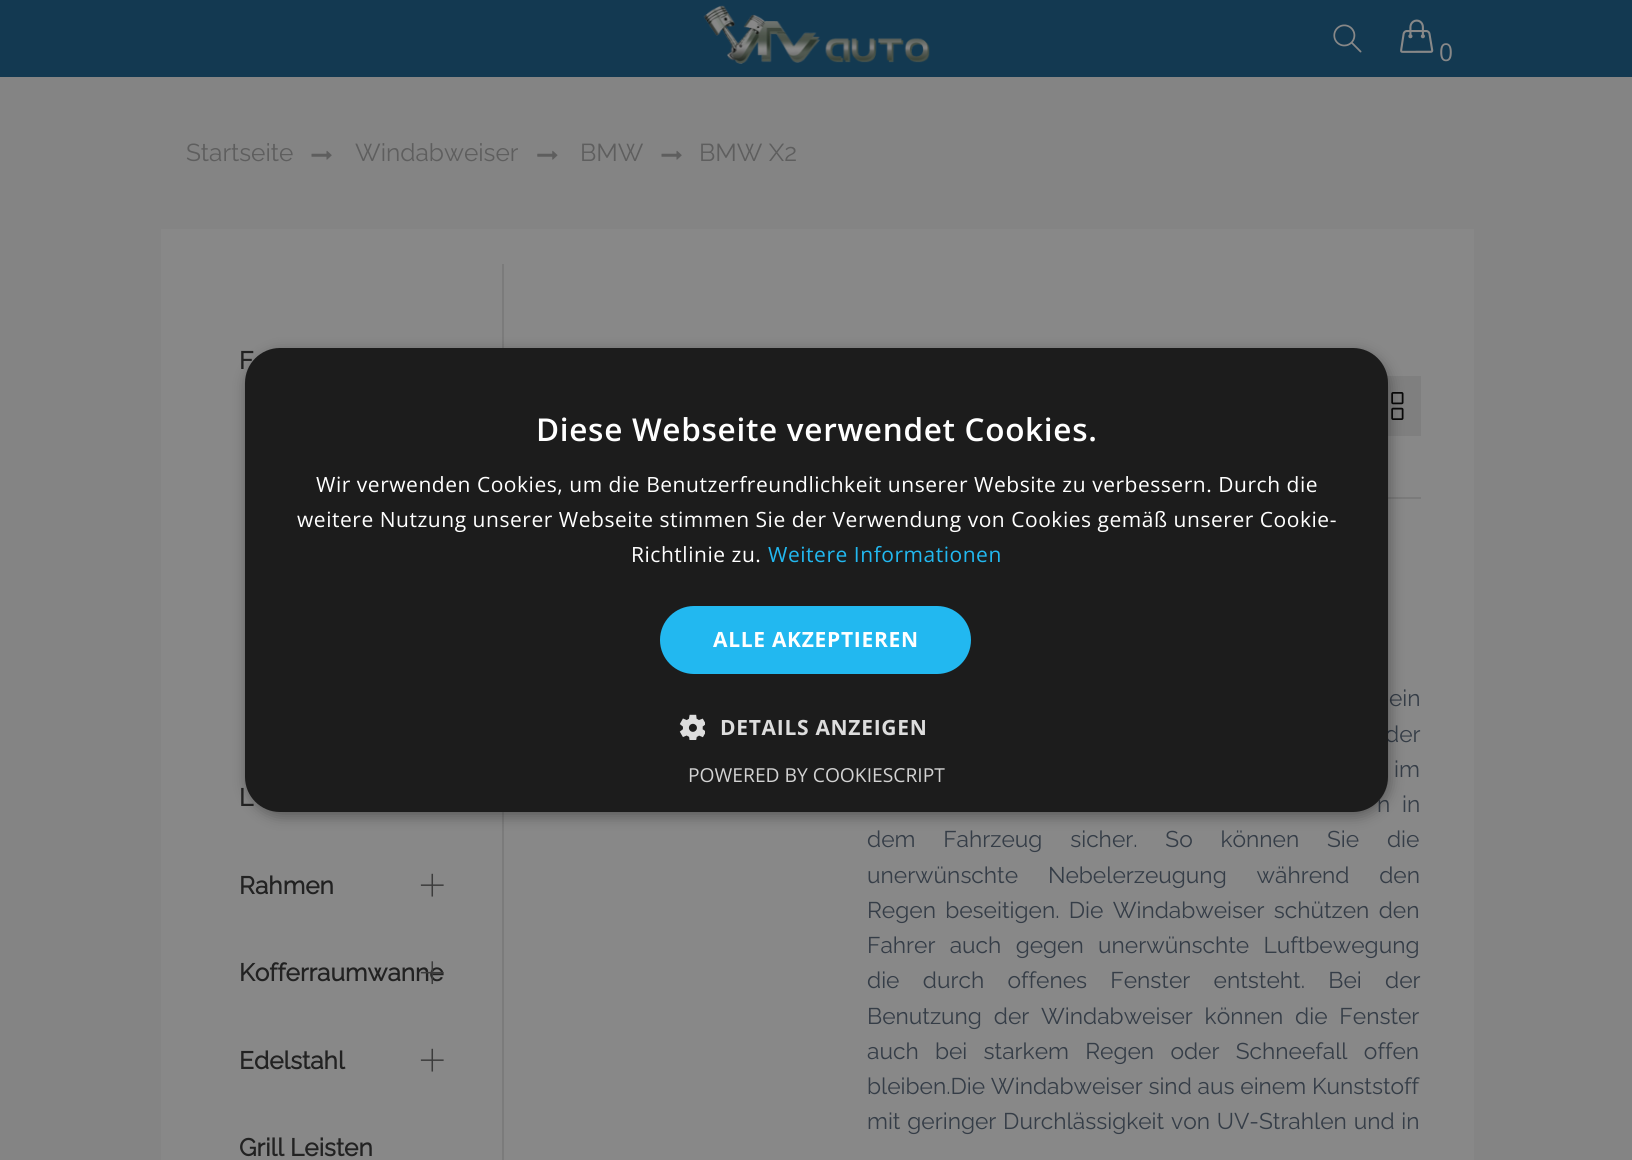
#include <cairo.h>
#include <math.h>
#include <stddef.h>

typedef struct { const char *family; double size; int italic, bold; unsigned color; } style_t;
static cairo_t *ctx;

static void ink(unsigned color) {
    cairo_set_source_rgb(ctx, (color >> 16) / 255.0, (color >> 8 & 255) / 255.0, (color & 255) / 255.0);
}

static void write(double x, double y, const char *s, const style_t *st) {
    cairo_select_font_face(ctx, st->family, st->italic ? CAIRO_FONT_SLANT_ITALIC : CAIRO_FONT_SLANT_NORMAL,
        st->bold ? CAIRO_FONT_WEIGHT_BOLD : CAIRO_FONT_WEIGHT_NORMAL);
    cairo_set_font_size(ctx, st->size);
    ink(st->color);
    cairo_move_to(ctx, x, y);
    cairo_show_text(ctx, s);
}

static void write_spaced(double x, double y, const char *s, double letter, double word) {
    cairo_move_to(ctx, x, y);
    while (*s) {
        char ch[5] = {0};
        int n = 0;
        do ch[n++] = *s++; while ((*s & 0xC0) == 0x80);
        cairo_show_text(ctx, ch);
        cairo_rel_move_to(ctx, letter + word * (*ch == ' '), 0);
    }
}

static void block(double x, double y, double w, double h, unsigned color) {
    ink(color);
    cairo_rectangle(ctx, x, y, w, h);
    cairo_fill(ctx);
}

static void round_path(double x, double y, double w, double h, double r) {
    cairo_new_sub_path(ctx);
    cairo_arc(ctx, x + w - r, y + h - r, r, 0, M_PI / 2);
    cairo_arc(ctx, x + r, y + h - r, r, M_PI / 2, M_PI);
    cairo_arc(ctx, x + r, y + r, r, M_PI, 1.5 * M_PI);
    cairo_arc(ctx, x + w - r, y + r, r, 1.5 * M_PI, 2 * M_PI);
    cairo_close_path(ctx);
}

static void blur_box(double x, double y, double w, double h, double r, double blur, double alpha) {
    cairo_push_group_with_content(ctx, CAIRO_CONTENT_ALPHA);
    cairo_set_operator(ctx, CAIRO_OPERATOR_SOURCE);
    for (int i = 15; i >= -15 && fmin(w, h) + blur * i / 3 > 0; i -= 2) {
        double e = blur * i / 6;
        cairo_set_source_rgba(ctx, 0, 0, 0, alpha * erfc((i - 1) / 8.5) / 2);
        round_path(x - e, y - e, w + 2 * e, h + 2 * e, fmax(0, fmin(r + e + blur * .6, fmin(w, h) / 2 + e)));
        cairo_fill(ctx);
    }
    cairo_pattern_t *soft = cairo_pop_group(ctx);
    cairo_mask(ctx, soft);
    cairo_pattern_destroy(soft);
}

static void paste(const char *path, double x, double y, double w, double h) {
    cairo_surface_t *image = cairo_image_surface_create_from_png(path);
    cairo_save(ctx);
    cairo_set_source_surface(ctx, image, x, y);
    cairo_rectangle(ctx, x, y, w, h);
    cairo_fill(ctx);
    cairo_restore(ctx);
    cairo_surface_destroy(image);
}

static const style_t s1 = {"Open Sans", 24.5, 0, 0, 0x888888};
static const style_t s2 = {"Raleway Thin", 24.5, 0, 0, 0x5e5e5e};
static const style_t s3 = {"Raleway", 24.5, 0, 1, 0x222222};
static const style_t s4 = {"Raleway Thin", 22.75, 0, 0, 0x353d47};
static const style_t s5 = {"Open Sans", 19.25, 0, 0, 0xd2d2d2};

int main(void) {
    cairo_surface_t *surface = cairo_image_surface_create(CAIRO_FORMAT_RGB24, 1632, 1160);
    ctx = cairo_create(surface);
    cairo_font_options_t *options = cairo_font_options_create();
    cairo_font_options_set_hint_metrics(options, CAIRO_HINT_METRICS_OFF);
    cairo_font_options_set_hint_style(options, CAIRO_HINT_STYLE_NONE);
    cairo_set_font_options(ctx, options);
    cairo_set_miter_limit(ctx, 4);
    ink(0x848484);
    cairo_paint(ctx);
    block(0, 0, 1632, 77, 0x133951);
    paste("pic1.png", 703, 5, 227, 59);
    paste("pic2.png", 1333, 24, 29, 29);
    paste("pic3.png", 1400, 19, 34, 34);
    write(1439, 61, "0", &s1);
    write(186, 161, "Startseite", &s2);
    paste("pic4.png", 311, 150, 21, 10);
    write(355, 161, "Windabweiser", &s2);
    paste("pic5.png", 537, 150, 21, 10);
    write(580, 161, "BMW", &s2);
    paste("pic4.png", 661, 150, 21, 10);
    write(699, 161, "BMW X2", &s2);
    block(161, 229, 1313, 931, 0x888888);
    write(239, 369, "F", &s3);
    write(239, 806, "L", &s3);
    write(239, 894, "Rahmen", &s3);
    paste("pic6.png", 420, 873, 24, 24);
    write(239, 981, "Kofferraumwanne", &s3);
    paste("pic7.png", 420, 961, 24, 24);
    write(239, 1069, "Edelstahl", &s3);
    write(239, 1156, "Grill Leisten", &s3);
    paste("pic6.png", 420, 1048, 24, 24);
    block(502, 264, 2, 896, 0x7b7b7b);
    block(1387, 376, 34, 60, 0x7f7f7f);
    paste("pic8.png", 1391, 392, 13, 28);
    block(1388, 497, 33, 2, 0x7b7b7b);
    cairo_select_font_face(ctx, "Raleway Thin", CAIRO_FONT_SLANT_NORMAL, CAIRO_FONT_WEIGHT_NORMAL);
    cairo_set_font_size(ctx, 22.75);
    ink(0x353d47);
    write_spaced(1389, 706, "ein", 0, 19);
    write_spaced(1385, 742, "der", 0, 8);
    write_spaced(1394, 777, "im", 0, 4);
    write_spaced(1377, 812, "n in", 0, 6);
    write_spaced(867, 847, "dem Fahrzeug sicher. So können Sie die", 0, 22);
    write_spaced(867, 883, "unerwünschte Nebelerzeugung während den", 0, 24);
    write_spaced(867, 918, "Regen beseitigen. Die Windabweiser schützen den", 0, 3.5);
    write_spaced(867, 953, "Fahrer auch gegen unerwünschte Luftbewegung", 0, 8.5);
    write_spaced(867, 988, "die durch offenes Fenster entsteht. Bei der", 0, 17.5);
    write_spaced(867, 1024, "Benutzung der Windabweiser können die Fenster", 0, 6);
    write_spaced(867, 1059, "auch bei starkem Regen oder Schneefall offen", 0, 10.5);
    write(867, 1094, "bleiben.Die Windabweiser sind aus einem Kunststoff", &s4);
    write_spaced(867, 1129, "mit geringer Durchlässigkeit von UV-Strahlen und in", 0, 1);
    ink(0x000000);
    blur_box(247, 352, 1143, 464, 35, 7, 0.35);
    ink(0x1c1c1c);
    round_path(245, 348, 1143, 464, 35);
    cairo_fill(ctx);
    cairo_select_font_face(ctx, "Open Sans SemiBold", CAIRO_FONT_SLANT_NORMAL, CAIRO_FONT_WEIGHT_NORMAL);
    cairo_set_font_size(ctx, 31.5);
    ink(0xffffff);
    write_spaced(536, 441, "Diese Webseite verwendet Cookies.", 0.7, 0);
    cairo_select_font_face(ctx, "Open Sans", CAIRO_FONT_SLANT_NORMAL, CAIRO_FONT_WEIGHT_NORMAL);
    cairo_set_font_size(ctx, 21);
    write_spaced(316, 492, "Wir verwenden Cookies, um die Benutzerfreundlichkeit unserer Website zu verbessern. Durch die", 0.53, 0);
    write_spaced(297, 527, "weitere Nutzung unserer Webseite stimmen Sie der Verwendung von Cookies gemäß unserer Cookie-", 0.53, 0);
    write_spaced(631, 562, "Richtlinie zu.", 0.53, 0);
    ink(0x22b8f0);
    write_spaced(768, 562, "Weitere Informationen", 0.53, 0);
    round_path(660, 606, 311, 68, 34);
    cairo_fill(ctx);
    cairo_select_font_face(ctx, "Open Sans", CAIRO_FONT_SLANT_NORMAL, CAIRO_FONT_WEIGHT_BOLD);
    ink(0xffffff);
    write_spaced(713, 647, "ALLE AKZEPTIEREN", 0.7, 0);
    paste("pic9.png", 679, 714, 26, 26);
    ink(0xdddddd);
    write_spaced(720, 735, "DETAILS ANZEIGEN", 0.7, 0);
    write(688, 782, "POWERED BY COOKIESCRIPT", &s5);
    cairo_surface_write_to_png(surface, "screenshot.png");
    cairo_font_options_destroy(options);
    cairo_destroy(ctx);
    cairo_surface_destroy(surface);
    return 0;
}
